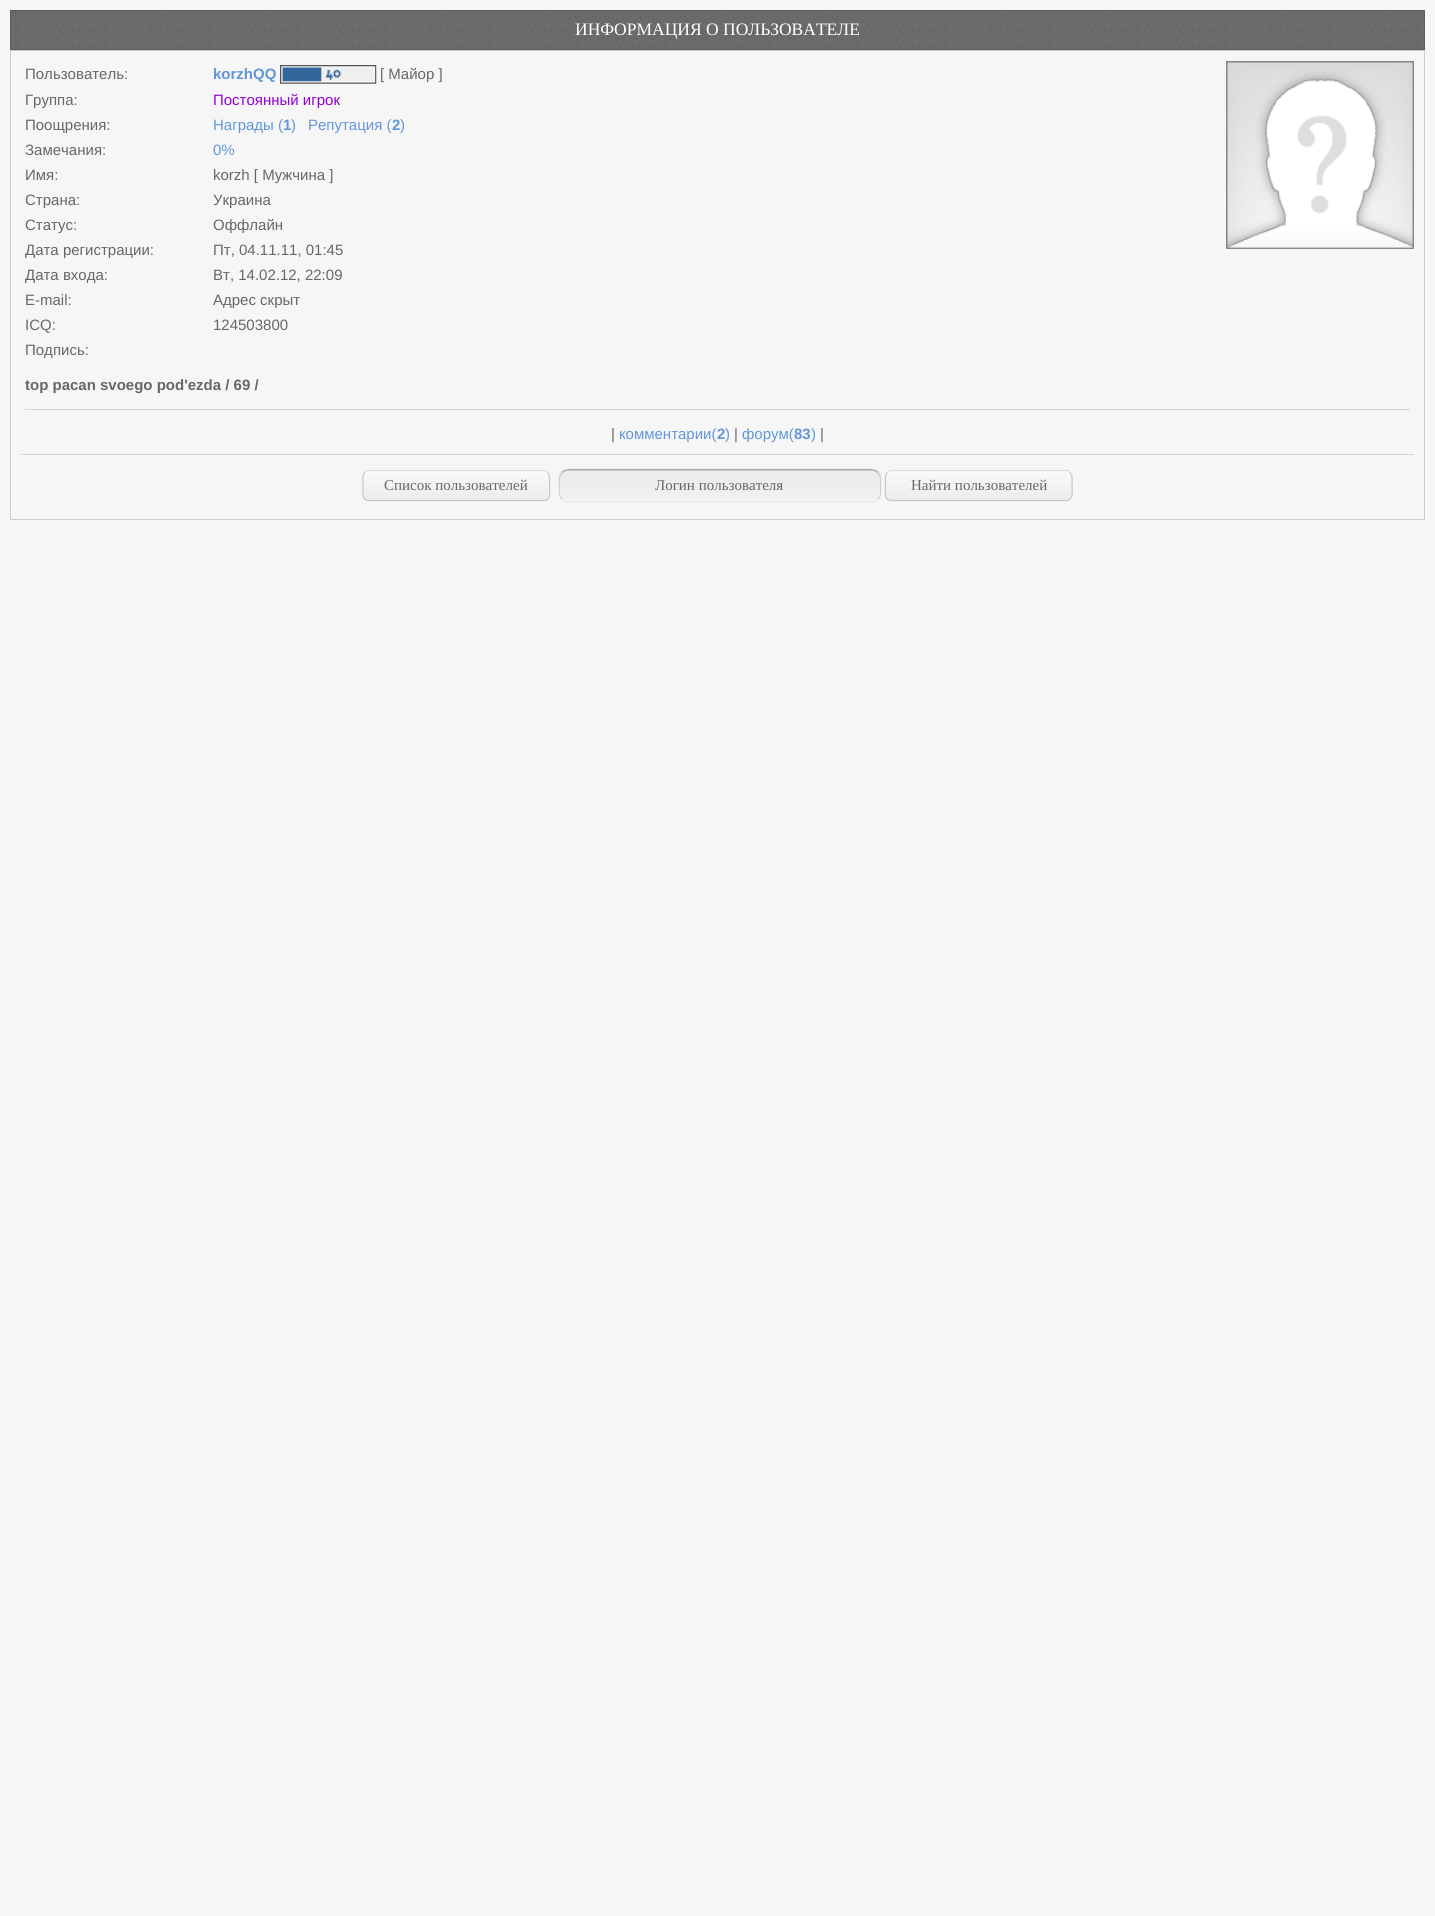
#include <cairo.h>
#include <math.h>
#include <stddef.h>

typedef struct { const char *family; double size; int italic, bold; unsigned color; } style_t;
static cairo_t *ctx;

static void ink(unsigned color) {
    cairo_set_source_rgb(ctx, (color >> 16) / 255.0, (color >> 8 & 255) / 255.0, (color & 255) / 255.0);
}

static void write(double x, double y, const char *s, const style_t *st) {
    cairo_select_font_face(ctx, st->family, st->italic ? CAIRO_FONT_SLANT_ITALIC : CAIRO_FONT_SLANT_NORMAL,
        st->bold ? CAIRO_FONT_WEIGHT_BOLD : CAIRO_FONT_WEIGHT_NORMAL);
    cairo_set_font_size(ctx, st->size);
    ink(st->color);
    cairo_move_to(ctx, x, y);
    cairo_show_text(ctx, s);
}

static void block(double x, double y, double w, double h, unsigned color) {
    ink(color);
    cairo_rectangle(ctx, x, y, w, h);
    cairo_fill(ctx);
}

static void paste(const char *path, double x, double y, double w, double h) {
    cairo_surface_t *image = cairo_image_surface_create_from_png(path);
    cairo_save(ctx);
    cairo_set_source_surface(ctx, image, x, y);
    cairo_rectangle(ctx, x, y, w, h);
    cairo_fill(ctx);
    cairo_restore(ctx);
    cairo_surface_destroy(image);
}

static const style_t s1 = {"Liberation Serif", 17.5, 0, 0, 0xffffff};
static const style_t s2 = {"Liberation Sans", 15, 0, 0, 0x676767};
static const style_t s3 = {"Liberation Sans", 15, 0, 1, 0x6196da};
static const style_t s4 = {"Liberation Sans", 15, 0, 0, 0x9400d3};
static const style_t s5 = {"Liberation Sans", 15, 0, 0, 0x6196da};
static const style_t s6 = {"Liberation Sans", 15, 0, 1, 0x676767};
static const style_t s7 = {"Liberation Serif", 15, 0, 0, 0x676767};

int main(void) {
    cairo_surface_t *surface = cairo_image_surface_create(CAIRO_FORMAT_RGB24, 1435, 1916);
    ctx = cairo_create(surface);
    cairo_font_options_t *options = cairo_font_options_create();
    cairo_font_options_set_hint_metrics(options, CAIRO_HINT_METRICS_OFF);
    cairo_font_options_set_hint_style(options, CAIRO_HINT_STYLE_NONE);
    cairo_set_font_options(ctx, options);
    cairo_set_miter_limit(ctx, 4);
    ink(0xf6f6f6);
    cairo_paint(ctx);
    paste("pic1.png", 11, 11, 1413, 38);
    cairo_rectangle(ctx, 10.5, 10.5, 1414, 39);
    ink(0x5e5b59);
    cairo_set_line_width(ctx, 1);
    cairo_stroke(ctx);
    write(575, 35, "ИНФОРМАЦИЯ О ПОЛЬЗОВАТЕЛЕ", &s1);
    cairo_rectangle(ctx, 10.5, 50.5, 1414, 469);
    ink(0xcccccc);
    cairo_stroke(ctx);
    write(25, 79, "Пользователь:", &s2);
    write(213, 79, "korzhQQ", &s3);
    paste("pic2.png", 280, 65, 97, 19);
    write(380, 79, "[ Майор ]", &s2);
    paste("pic3.png", 1226, 61, 188, 188);
    write(25, 105, "Группа:", &s2);
    write(213, 105, "Постоянный игрок", &s4);
    write(25, 130, "Поощрения:", &s2);
    write(213, 130, "Награды (", &s5);
    write(283, 130, "1", &s3);
    write(291, 130, ")", &s5);
    write(308, 130, "Репутация (", &s5);
    write(392, 130, "2", &s3);
    write(400, 130, ")", &s5);
    write(25, 155, "Замечания:", &s2);
    write(213, 155, "0%", &s5);
    write(25, 180, "Имя:", &s2);
    write(213, 180, "korzh [ Мужчина ]", &s2);
    write(25, 205, "Страна:", &s2);
    write(213, 205, "Украина", &s2);
    write(25, 230, "Статус:", &s2);
    write(213, 230, "Оффлайн", &s2);
    write(25, 255, "Дата регистрации:", &s2);
    write(213, 255, "Пт, 04.11.11, 01:45", &s2);
    write(25, 280, "Дата входа:", &s2);
    write(213, 280, "Вт, 14.02.12, 22:09", &s2);
    write(25, 305, "E-mail:", &s2);
    write(213, 305, "Адрес скрыт", &s2);
    write(25, 330, "ICQ:", &s2);
    write(213, 330, "124503800", &s2);
    write(25, 355, "Подпись:", &s2);
    write(25, 390, "top pacan svoego pod'ezda / 69 /", &s6);
    block(25, 409, 1385, 1, 0xd6d6d6);
    write(611, 439, "|", &s2);
    write(619, 439, "комментарии(", &s5);
    write(717, 439, "2", &s3);
    write(725, 439, ")", &s5);
    write(734, 439, "|", &s2);
    write(742, 439, "форум(", &s5);
    write(794, 439, "83", &s3);
    write(811, 439, ")", &s5);
    write(820, 439, "|", &s2);
    block(21, 454, 1393, 1, 0xd6d6d6);
    paste("pic4.png", 363, 471, 187, 30);
    cairo_new_path(ctx);
    cairo_move_to(ctx, 365, 472.5);
    cairo_curve_to(ctx, 366, 471, 367.5, 470.5, 369, 470.5);
    cairo_line_to(ctx, 544, 470.5);
    cairo_curve_to(ctx, 545, 470.5, 546.5, 471, 547.5, 472.5);
    ink(0xdddddd);
    cairo_set_line_width(ctx, 1.2);
    cairo_stroke(ctx);
    cairo_new_path(ctx);
    cairo_move_to(ctx, 547.5, 472.5);
    cairo_curve_to(ctx, 550.5, 475.5, 549.5, 482, 549.5, 485.5);
    cairo_curve_to(ctx, 549.5, 490, 551.5, 500.5, 544, 500.5);
    cairo_line_to(ctx, 369, 500.5);
    cairo_curve_to(ctx, 361, 500.5, 363, 490, 363, 485.5);
    cairo_curve_to(ctx, 363, 482, 362, 475.5, 365, 472.5);
    ink(0xc6c6c6);
    cairo_stroke(ctx);
    write(384, 490, "Список пользователей", &s7);
    paste("pic5.png", 559, 470, 322, 29);
    ink(0xcdcdcd);
    cairo_new_path(ctx);
    cairo_move_to(ctx, 569, 471);
    cairo_line_to(ctx, 871, 471);
    cairo_curve_to(ctx, 876, 471, 880, 475, 880, 480);
    cairo_line_to(ctx, 880, 479);
    cairo_curve_to(ctx, 880, 474, 876, 470, 871, 470);
    cairo_line_to(ctx, 569, 470);
    cairo_curve_to(ctx, 564, 470, 560, 474, 560, 479);
    cairo_line_to(ctx, 560, 480);
    cairo_curve_to(ctx, 560, 475, 564, 471, 569, 471);
    cairo_close_path(ctx);
    cairo_fill(ctx);
    cairo_new_path(ctx);
    cairo_move_to(ctx, 562, 472);
    cairo_curve_to(ctx, 564, 470.5, 566.5, 469.5, 569, 469.5);
    cairo_line_to(ctx, 871, 469.5);
    cairo_curve_to(ctx, 873.5, 469.5, 876, 470.5, 878, 472);
    ink(0xacacac);
    cairo_stroke(ctx);
    cairo_new_path(ctx);
    cairo_move_to(ctx, 878, 472);
    cairo_curve_to(ctx, 881.5, 475.5, 880.5, 481, 880.5, 485.5);
    cairo_curve_to(ctx, 880.5, 490.5, 881.5, 495.5, 878, 499);
    ink(0xd0d0d0);
    cairo_stroke(ctx);
    cairo_new_path(ctx);
    cairo_move_to(ctx, 878, 499);
    cairo_curve_to(ctx, 876, 501, 873.5, 502, 871, 502);
    cairo_line_to(ctx, 569, 502);
    cairo_curve_to(ctx, 566.5, 502, 564, 501, 562, 499);
    ink(0xe9e9e9);
    cairo_stroke(ctx);
    cairo_new_path(ctx);
    cairo_move_to(ctx, 562, 499);
    cairo_curve_to(ctx, 558.5, 495.5, 559.5, 490.5, 559.5, 485.5);
    cairo_curve_to(ctx, 559.5, 481, 558.5, 475.5, 562, 472);
    ink(0xd0d0d0);
    cairo_stroke(ctx);
    write(655, 490, "Логин пользователя", &s7);
    paste("pic6.png", 885, 471, 187, 30);
    cairo_new_path(ctx);
    cairo_move_to(ctx, 887.5, 472.5);
    cairo_curve_to(ctx, 888.5, 471, 890, 470.5, 891, 470.5);
    cairo_line_to(ctx, 1066, 470.5);
    cairo_curve_to(ctx, 1067.5, 470.5, 1069, 471, 1070, 472.5);
    ink(0xdddddd);
    cairo_stroke(ctx);
    cairo_new_path(ctx);
    cairo_move_to(ctx, 1070, 472.5);
    cairo_curve_to(ctx, 1073, 475.5, 1072, 482, 1072, 485.5);
    cairo_curve_to(ctx, 1072, 490, 1074, 500.5, 1066, 500.5);
    cairo_line_to(ctx, 891, 500.5);
    cairo_curve_to(ctx, 883.5, 500.5, 885.5, 490, 885.5, 485.5);
    cairo_curve_to(ctx, 885.5, 482, 884.5, 475.5, 887.5, 472.5);
    ink(0xc6c6c6);
    cairo_stroke(ctx);
    write(911, 490, "Найти пользователей", &s7);
    cairo_surface_write_to_png(surface, "screenshot.png");
    cairo_font_options_destroy(options);
    cairo_destroy(ctx);
    cairo_surface_destroy(surface);
    return 0;
}
